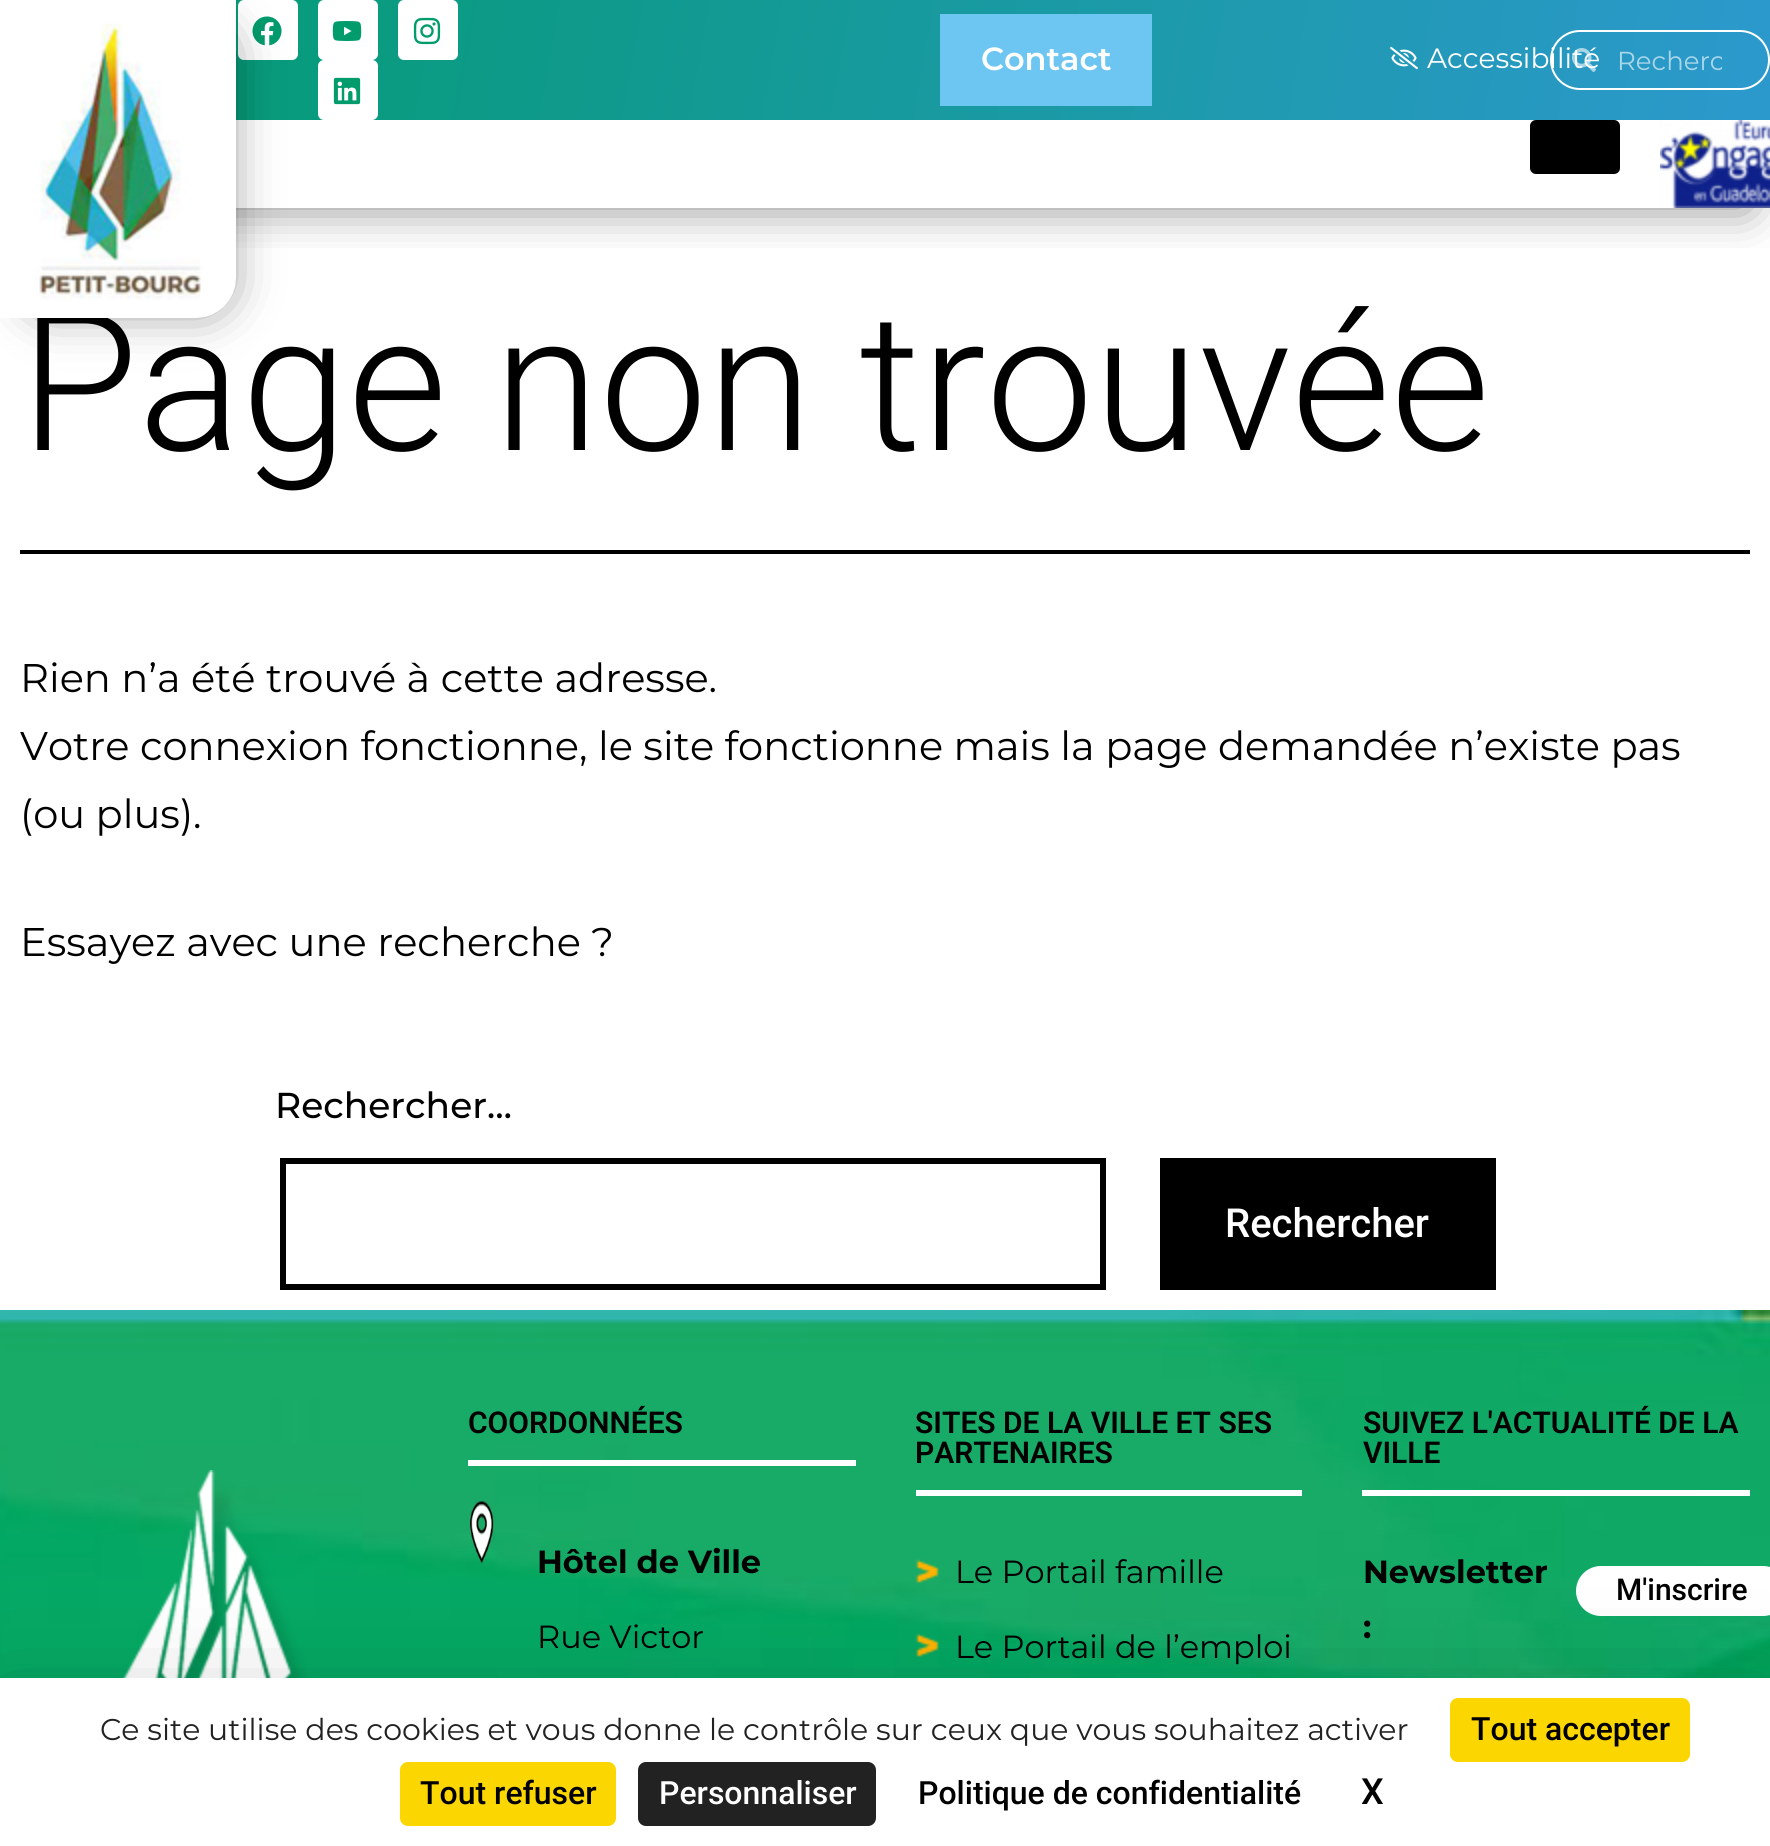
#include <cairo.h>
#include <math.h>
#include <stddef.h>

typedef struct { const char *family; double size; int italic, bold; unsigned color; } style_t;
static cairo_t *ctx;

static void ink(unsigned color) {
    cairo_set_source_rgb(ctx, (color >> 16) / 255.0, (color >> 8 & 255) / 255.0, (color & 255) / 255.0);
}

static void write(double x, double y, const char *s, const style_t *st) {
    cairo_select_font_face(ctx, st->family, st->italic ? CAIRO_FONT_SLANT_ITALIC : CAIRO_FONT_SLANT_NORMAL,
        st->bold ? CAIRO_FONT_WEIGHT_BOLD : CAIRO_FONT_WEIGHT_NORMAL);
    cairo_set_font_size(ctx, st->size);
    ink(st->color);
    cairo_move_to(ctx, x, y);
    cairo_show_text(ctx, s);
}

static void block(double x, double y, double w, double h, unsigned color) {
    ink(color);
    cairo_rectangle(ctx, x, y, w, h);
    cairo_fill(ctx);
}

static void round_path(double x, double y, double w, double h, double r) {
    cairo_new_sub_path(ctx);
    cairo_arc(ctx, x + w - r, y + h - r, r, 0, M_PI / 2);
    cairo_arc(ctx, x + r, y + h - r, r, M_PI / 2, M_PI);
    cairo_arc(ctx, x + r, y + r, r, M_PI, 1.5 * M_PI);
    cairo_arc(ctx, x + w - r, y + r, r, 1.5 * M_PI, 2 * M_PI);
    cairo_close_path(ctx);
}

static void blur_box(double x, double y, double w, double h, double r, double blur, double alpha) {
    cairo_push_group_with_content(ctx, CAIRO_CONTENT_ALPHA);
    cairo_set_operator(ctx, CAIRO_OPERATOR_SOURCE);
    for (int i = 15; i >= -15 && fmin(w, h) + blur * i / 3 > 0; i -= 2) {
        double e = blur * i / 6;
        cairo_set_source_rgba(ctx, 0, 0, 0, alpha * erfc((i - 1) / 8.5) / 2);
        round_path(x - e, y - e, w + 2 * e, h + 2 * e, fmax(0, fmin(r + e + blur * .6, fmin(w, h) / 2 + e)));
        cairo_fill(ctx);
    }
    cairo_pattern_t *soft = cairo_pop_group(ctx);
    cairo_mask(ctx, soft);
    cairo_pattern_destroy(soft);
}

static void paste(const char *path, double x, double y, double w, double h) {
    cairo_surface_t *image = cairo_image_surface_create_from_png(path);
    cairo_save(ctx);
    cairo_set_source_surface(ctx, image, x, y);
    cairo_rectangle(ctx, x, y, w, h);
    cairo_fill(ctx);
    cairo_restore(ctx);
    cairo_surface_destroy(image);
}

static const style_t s1 = {"Roboto Light", 192, 0, 0, 0x000000};
static const style_t s2 = {"Montserrat SemiBold", 32, 0, 0, 0xffffff};
static const style_t s3 = {"Montserrat", 28, 0, 0, 0xffffff};
static const style_t s4 = {"Montserrat", 26, 0, 0, 0xa9d6e9};
static const style_t s5 = {"Montserrat", 40, 0, 0, 0x000000};
static const style_t s6 = {"Montserrat Medium", 36, 0, 0, 0x000000};
static const style_t s7 = {"Roboto Medium", 40, 0, 0, 0xffffff};
static const style_t s8 = {"Roboto SemiBold", 30, 0, 0, 0x000000};
static const style_t s9 = {"Montserrat", 32, 0, 1, 0x000000};
static const style_t s10 = {"Montserrat", 32, 0, 0, 0x000000};
static const style_t s11 = {"Roboto Medium", 30, 0, 0, 0x000000};
static const style_t s12 = {"Montserrat", 30, 0, 0, 0x222222};
static const style_t s13 = {"Roboto Medium", 32, 0, 0, 0x000000};
static const style_t s14 = {"Roboto Medium", 32, 0, 0, 0xffffff};
static const style_t s15 = {"Roboto Medium", 36, 0, 0, 0x000000};

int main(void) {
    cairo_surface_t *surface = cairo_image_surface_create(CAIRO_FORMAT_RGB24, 1770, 1846);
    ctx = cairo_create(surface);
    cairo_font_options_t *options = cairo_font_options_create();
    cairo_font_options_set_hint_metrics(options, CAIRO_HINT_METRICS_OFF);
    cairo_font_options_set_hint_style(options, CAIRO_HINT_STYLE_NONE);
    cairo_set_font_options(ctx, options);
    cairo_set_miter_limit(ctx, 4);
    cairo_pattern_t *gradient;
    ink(0xffffff);
    cairo_paint(ctx);
    gradient = cairo_pattern_create_linear(16, -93, 1754, 213);
    cairo_pattern_add_color_stop_rgba(gradient, 0, 0.004, 0.608, 0.424, 1);
    cairo_pattern_add_color_stop_rgba(gradient, 1, 0.173, 0.6, 0.804, 1);
    cairo_set_source(ctx, gradient);
    cairo_pattern_destroy(gradient);
    cairo_rectangle(ctx, 236, 0, 1534, 120);
    cairo_fill(ctx);
    ink(0xffffff);
    round_path(238, 0, 60, 60, 6);
    cairo_fill(ctx);
    paste("pic2.png", 252, 16, 30, 30);
    ink(0x000000);
    blur_box(30, 30, 196, 278, 20, 25, 0.5);
    ink(0xffffff);
    round_path(318, 60, 60, 60, 6);
    cairo_fill(ctx);
    paste("pic5.png", 333, 77, 28, 28);
    block(940, 14, 212, 92, 0x6dc6f2);
    round_path(1551, 31, 218, 58, 29);
    ink(0xffffff);
    cairo_stroke(ctx);
    cairo_save(ctx);
    cairo_rectangle(ctx, 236, 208, 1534, 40);
    cairo_clip(ctx);
    ink(0x000000);
    blur_box(22, 162, 1726, 44, 0, 24, 0.5);
    cairo_restore(ctx);
    write(20, 450, "Page non trouvée", &s1);
    paste("pic1.png", 0, 0, 236, 318);
    ink(0xffffff);
    round_path(318, 0, 60, 60, 6);
    cairo_fill(ctx);
    paste("pic3.png", 332, 21, 30, 20);
    round_path(398, 0, 60, 60, 6);
    cairo_fill(ctx);
    paste("pic4.png", 413, 17, 28, 28);
    write(981, 70, "Contact", &s2);
    paste("pic6.png", 1390, 46, 28, 24);
    write(1427, 68, "Accessibilité", &s3);
    paste("pic7.png", 1572, 48, 24, 24);
    cairo_save(ctx);
    cairo_rectangle(ctx, 1616, 44, 106, 32);
    cairo_clip(ctx);
    write(1617, 70, "Recherc", &s4);
    cairo_restore(ctx);
    ink(0x000000);
    round_path(1530, 120, 90, 54, 6);
    cairo_fill(ctx);
    paste("pic8.png", 1660, 120, 110, 88);
    block(20, 550, 1730, 4, 0x000000);
    write(20, 692, "Rien n’a été trouvé à cette adresse.", &s5);
    write(20, 760, "Votre connexion fonctionne, le site fonctionne mais la page demandée n’existe pas", &s5);
    write(20, 828, "(ou plus).", &s5);
    write(20, 956, "Essayez avec une recherche ?", &s5);
    write(275, 1118, "Rechercher…", &s6);
    cairo_rectangle(ctx, 283, 1161, 820, 126);
    cairo_set_line_width(ctx, 6);
    cairo_stroke(ctx);
    block(1160, 1158, 336, 132, 0x000000);
    write(1225, 1237, "Rechercher", &s7);
    paste("pic9.png", 0, 1310, 1770, 368);
    paste("pic10.png", 123, 1470, 184, 208);
    write(468, 1433, "COORDONNÉES", &s8);
    block(468, 1460, 388, 6, 0xffffff);
    paste("pic11.png", 470, 1501, 24, 62);
    write(537, 1573, "Hôtel de Ville", &s9);
    write(537, 1648, "Rue Victor", &s10);
    write(915, 1433, "SITES DE LA VILLE ET SES", &s8);
    write(915, 1463, "PARTENAIRES", &s8);
    block(916, 1490, 386, 6, 0xffffff);
    paste("pic12.png", 915, 1559, 24, 25);
    write(955, 1583, "Le Portail famille", &s10);
    paste("pic13.png", 915, 1633, 24, 25);
    write(955, 1658, "Le Portail de l’emploi", &s10);
    write(1363, 1433, "SUIVEZ L'ACTUALITÉ DE LA", &s8);
    write(1363, 1463, "VILLE", &s8);
    block(1362, 1490, 388, 6, 0xffffff);
    write(1363, 1583, "Newsletter", &s9);
    write(1363, 1638, ":", &s9);
    ink(0xffffff);
    round_path(1576, 1566, 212, 50, 25);
    cairo_fill(ctx);
    write(1616, 1600, "M'inscrire", &s11);
    ink(0x000000);
    blur_box(0, 1718, 1770, 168, 0, 60, 0.25);
    block(0, 1678, 1770, 168, 0xffffff);
    write(100, 1740, "Ce site utilise des cookies et vous donne le contrôle sur ceux que vous souhaitez activer", &s12);
    ink(0xfbd600);
    round_path(1450, 1698, 240, 64, 8);
    cairo_fill(ctx);
    write(1471, 1740, "Tout accepter", &s13);
    ink(0xfbd600);
    round_path(400, 1762, 216, 64, 8);
    cairo_fill(ctx);
    write(420, 1804, "Tout refuser", &s13);
    ink(0x222222);
    round_path(638, 1762, 238, 64, 8);
    cairo_fill(ctx);
    write(659, 1804, "Personnaliser", &s14);
    write(918, 1804, "Politique de confidentialité", &s13);
    write(1361, 1804, "X", &s15);
    cairo_surface_write_to_png(surface, "screenshot.png");
    cairo_font_options_destroy(options);
    cairo_destroy(ctx);
    cairo_surface_destroy(surface);
    return 0;
}
